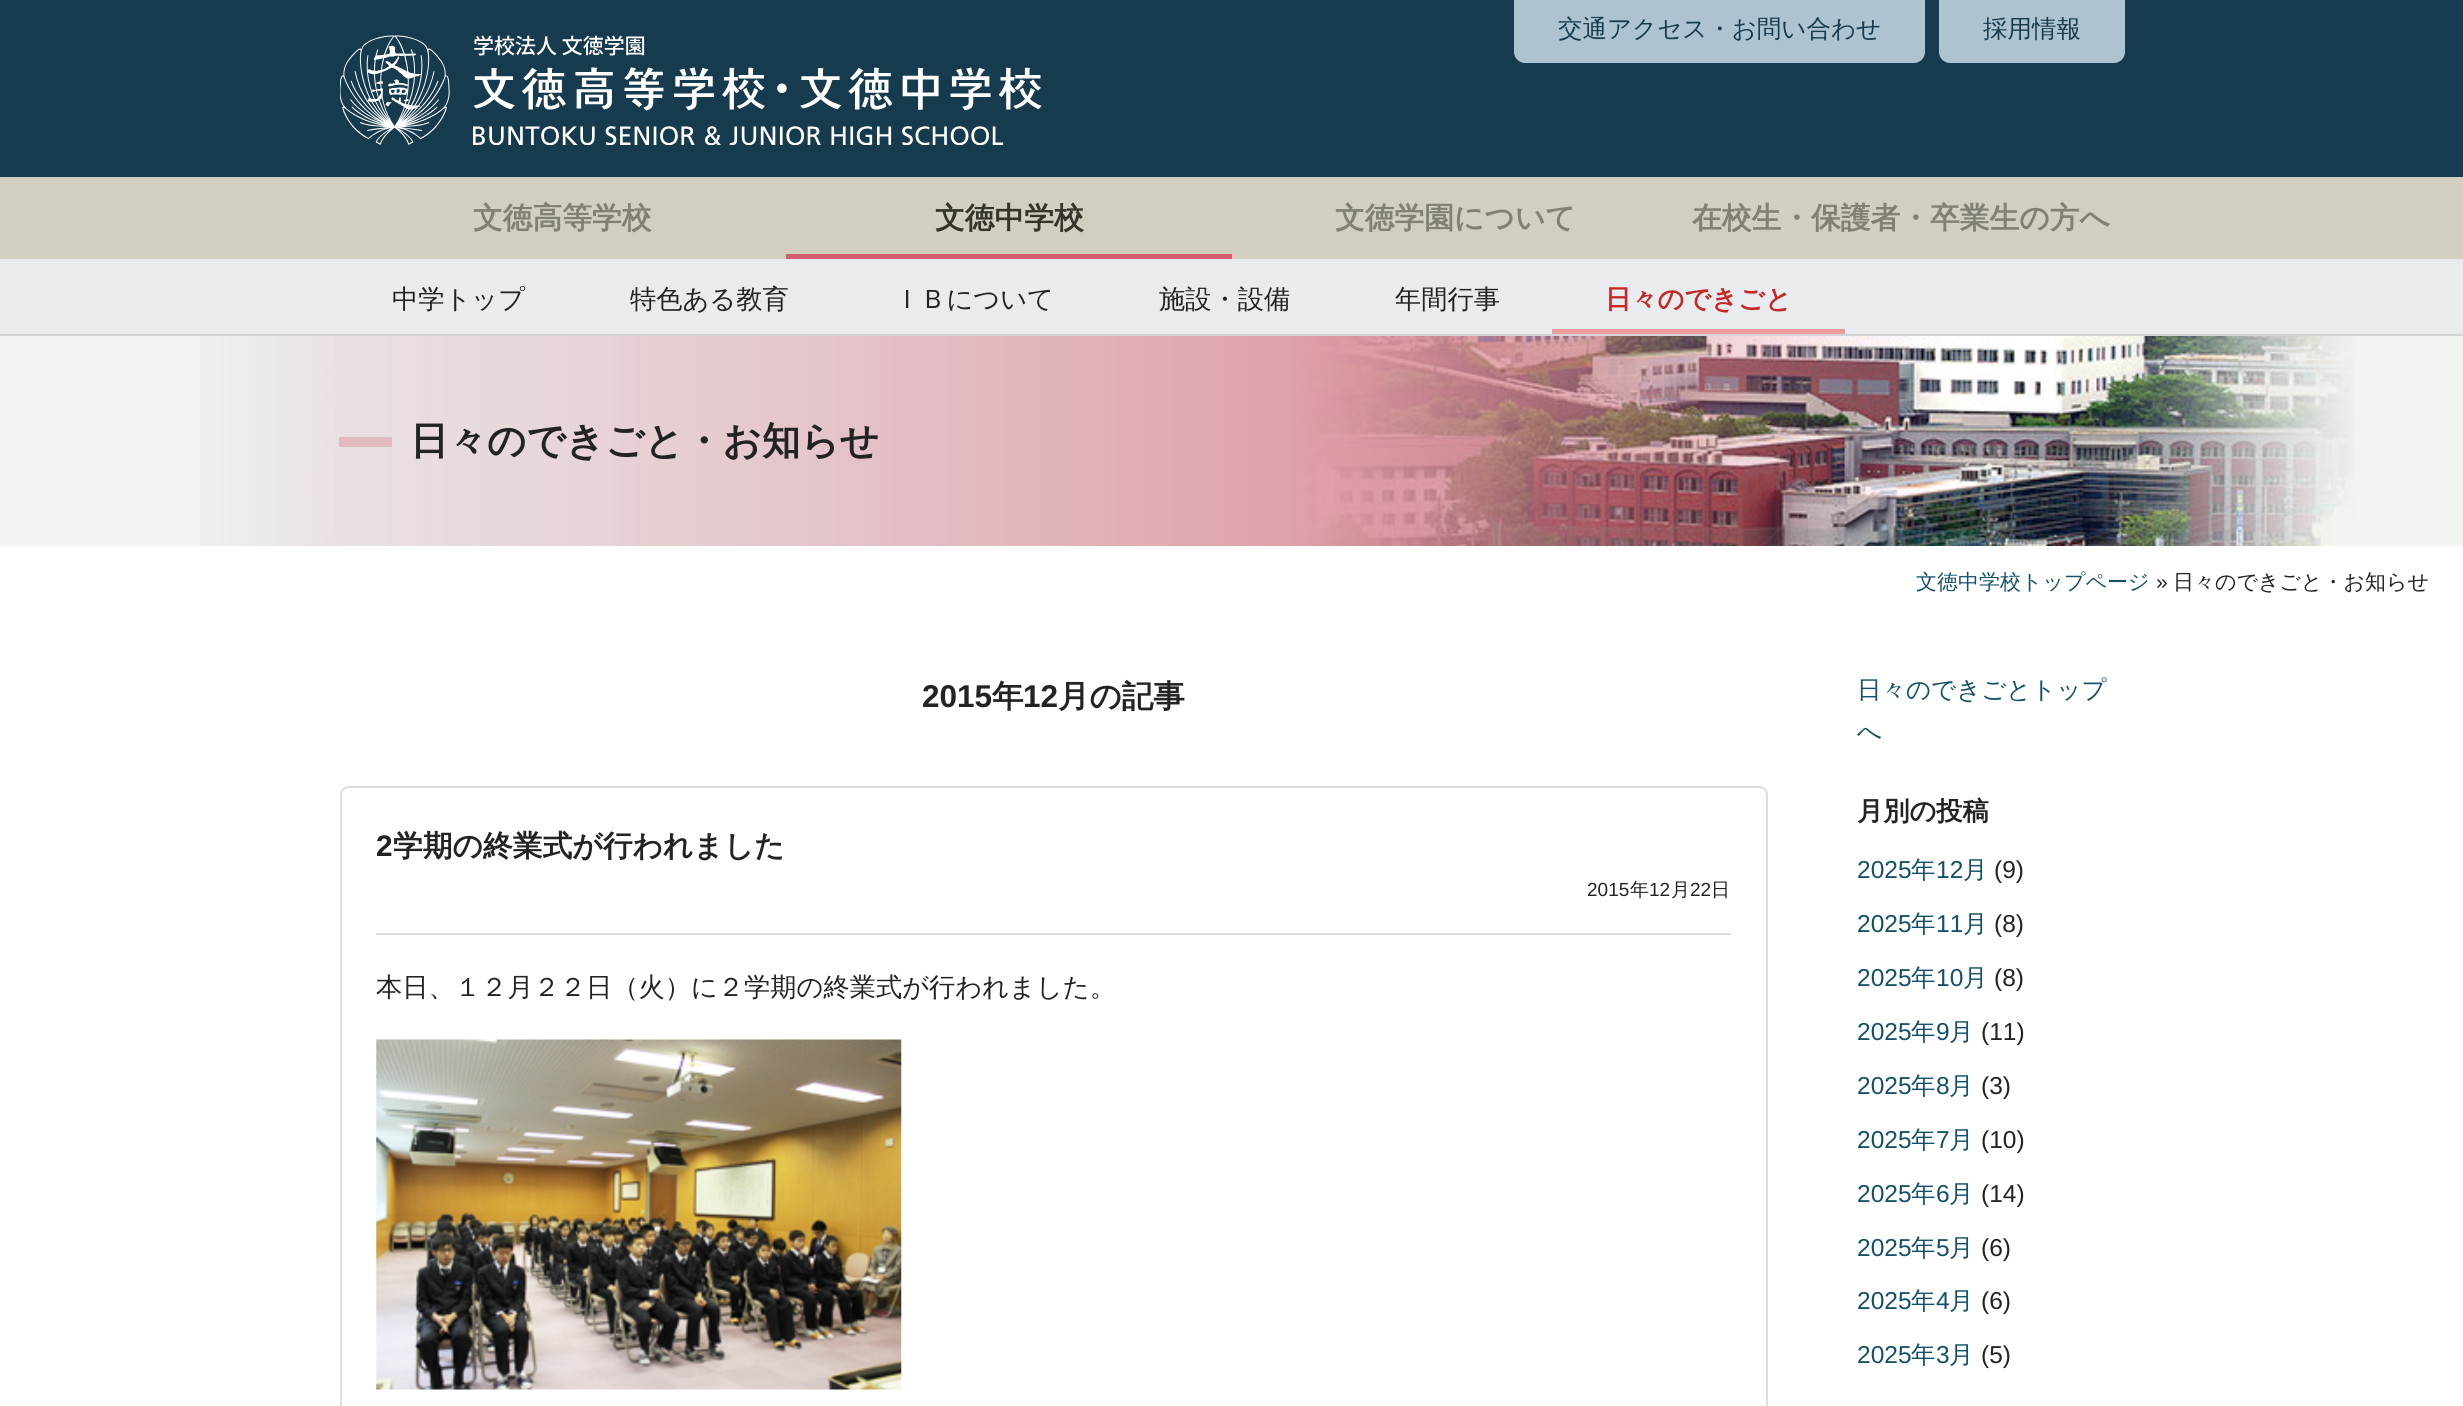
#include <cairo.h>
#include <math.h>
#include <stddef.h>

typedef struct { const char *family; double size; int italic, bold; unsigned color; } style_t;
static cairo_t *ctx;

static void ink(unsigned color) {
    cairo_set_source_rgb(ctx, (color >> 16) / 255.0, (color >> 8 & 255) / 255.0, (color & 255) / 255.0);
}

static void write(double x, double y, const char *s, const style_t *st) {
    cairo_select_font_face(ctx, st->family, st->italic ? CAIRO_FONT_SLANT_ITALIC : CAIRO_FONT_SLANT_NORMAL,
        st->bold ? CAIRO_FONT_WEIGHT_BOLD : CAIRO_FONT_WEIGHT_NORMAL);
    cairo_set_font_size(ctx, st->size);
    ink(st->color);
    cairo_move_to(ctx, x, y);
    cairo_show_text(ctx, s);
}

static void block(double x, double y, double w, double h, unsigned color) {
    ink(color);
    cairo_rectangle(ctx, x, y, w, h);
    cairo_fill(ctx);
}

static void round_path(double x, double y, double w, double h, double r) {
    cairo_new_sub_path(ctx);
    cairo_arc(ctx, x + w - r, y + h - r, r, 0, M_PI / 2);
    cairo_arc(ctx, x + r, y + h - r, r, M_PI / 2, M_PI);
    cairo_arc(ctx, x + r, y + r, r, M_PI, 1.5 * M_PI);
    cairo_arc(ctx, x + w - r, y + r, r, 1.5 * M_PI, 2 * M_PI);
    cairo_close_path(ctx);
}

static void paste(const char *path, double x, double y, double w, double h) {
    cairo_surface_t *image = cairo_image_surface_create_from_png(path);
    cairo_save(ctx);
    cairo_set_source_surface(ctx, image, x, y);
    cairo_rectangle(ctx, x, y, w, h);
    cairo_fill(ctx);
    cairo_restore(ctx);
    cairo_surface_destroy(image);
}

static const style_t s1 = {"WenQuanYi Zen Hei Medium", 24.5, 0, 0, 0x163b4f};
static const style_t s2 = {"WenQuanYi Zen Hei", 29.75, 0, 1, 0x827f74};
static const style_t s3 = {"WenQuanYi Zen Hei", 29.75, 0, 1, 0x36332a};
static const style_t s4 = {"WenQuanYi Zen Hei Medium", 26.25, 0, 0, 0x232323};
static const style_t s5 = {"WenQuanYi Zen Hei", 26.25, 0, 1, 0xc62828};
static const style_t s6 = {"WenQuanYi Zen Hei", 38.5, 0, 1, 0x232323};
static const style_t s7 = {"WenQuanYi Zen Hei Medium", 21, 0, 0, 0x13516a};
static const style_t s8 = {"Liberation Sans", 21, 0, 0, 0x232323};
static const style_t s9 = {"WenQuanYi Zen Hei Medium", 21, 0, 0, 0x232323};
static const style_t s10 = {"Liberation Sans", 31.5, 0, 1, 0x232323};
static const style_t s11 = {"WenQuanYi Zen Hei", 31.5, 0, 1, 0x232323};
static const style_t s12 = {"Liberation Sans", 29.75, 0, 1, 0x232323};
static const style_t s13 = {"WenQuanYi Zen Hei", 29.75, 0, 1, 0x232323};
static const style_t s14 = {"Liberation Sans", 19, 0, 0, 0x232323};
static const style_t s15 = {"WenQuanYi Zen Hei Medium", 19, 0, 0, 0x232323};
static const style_t s16 = {"WenQuanYi Zen Hei Medium", 24.5, 0, 0, 0x13516a};
static const style_t s17 = {"WenQuanYi Zen Hei", 26.25, 0, 1, 0x232323};
static const style_t s18 = {"Liberation Sans", 24.5, 0, 0, 0x13516a};
static const style_t s19 = {"Liberation Sans", 24.5, 0, 0, 0x232323};

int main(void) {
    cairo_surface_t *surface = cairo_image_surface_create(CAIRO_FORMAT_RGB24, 2463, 1406);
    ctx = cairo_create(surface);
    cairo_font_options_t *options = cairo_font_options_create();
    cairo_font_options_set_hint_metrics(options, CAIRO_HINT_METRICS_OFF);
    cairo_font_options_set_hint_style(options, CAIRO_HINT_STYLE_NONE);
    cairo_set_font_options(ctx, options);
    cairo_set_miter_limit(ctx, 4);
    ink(0x163b4f);
    cairo_paint(ctx);
    ink(0xadc3cf);
    cairo_new_path(ctx);
    cairo_move_to(ctx, 1514, 0);
    cairo_line_to(ctx, 1925, 0);
    cairo_line_to(ctx, 1925, 52);
    cairo_curve_to(ctx, 1925, 58, 1920, 63, 1914, 63);
    cairo_line_to(ctx, 1525, 63);
    cairo_curve_to(ctx, 1519, 63, 1514, 58, 1514, 52);
    cairo_close_path(ctx);
    cairo_fill(ctx);
    write(1558, 37, "交通アクセス・お問い合わせ", &s1);
    ink(0xadc3cf);
    cairo_new_path(ctx);
    cairo_move_to(ctx, 1939, 0);
    cairo_line_to(ctx, 2125, 0);
    cairo_line_to(ctx, 2125, 52);
    cairo_curve_to(ctx, 2125, 58, 2120, 63, 2114, 63);
    cairo_line_to(ctx, 1950, 63);
    cairo_curve_to(ctx, 1944, 63, 1939, 58, 1939, 52);
    cairo_close_path(ctx);
    cairo_fill(ctx);
    write(1983, 37, "採用情報", &s1);
    paste("pic1.png", 340, 35, 702, 110);
    block(0, 177, 2463, 82, 0xd2cec0);
    write(473, 228, "文徳高等学校", &s2);
    block(786, 254, 446, 5, 0xd35e6e);
    write(935, 228, "文徳中学校", &s3);
    write(1335, 228, "文徳学園について", &s2);
    write(1692, 228, "在校生・保護者・卒業生の方へ", &s2);
    block(0, 259, 2463, 75, 0xe8ecee);
    block(0, 334, 2463, 2, 0xd3d3d3);
    write(392, 308, "中学トップ", &s4);
    write(630, 308, "特色ある教育", &s4);
    write(894, 308, "ＩＢについて", &s4);
    write(1159, 308, "施設・設備", &s4);
    write(1395, 308, "年間行事", &s4);
    block(1552, 329, 293, 5, 0xef9a9a);
    write(1605, 308, "日々のできごと", &s5);
    block(0, 336, 2463, 210, 0xf2f4f1);
    paste("pic2.png", 200, 336, 2155, 210);
    block(339, 437, 53, 10, 0xe2b9bf);
    write(410, 454, "日々のできごと・お知らせ", &s6);
    block(0, 546, 2463, 860, 0xffffff);
    write(1916, 589, "文徳中学校トップページ", &s7);
    write(2156, 589, "»", &s8);
    write(2173, 589, "日々のできごと・お知らせ", &s9);
    write(922, 707, "2015", &s10);
    write(992, 707, "年", &s11);
    write(1023, 707, "12", &s10);
    write(1058, 707, "月の記事", &s11);
    round_path(341, 787, 1426, 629, 8);
    ink(0xdddddd);
    cairo_stroke(ctx);
    write(376, 856, "2", &s12);
    write(393, 856, "学期の終業式が行われました", &s13);
    block(376, 933, 1355, 2, 0xdddddd);
    write(1587, 896, "2015", &s14);
    write(1630, 896, "年", &s15);
    write(1649, 896, "12", &s14);
    write(1671, 896, "月", &s15);
    write(1690, 896, "22", &s14);
    write(1711, 896, "日", &s15);
    write(376, 996, "本日、１２月２２日（火）に２学期の終業式が行われました。", &s4);
    paste("pic3.png", 376, 1039, 526, 351);
    write(1857, 698, "日々のできごとトップ", &s16);
    write(1857, 740, "へ", &s16);
    write(1857, 820, "月別の投稿", &s17);
    write(1857, 878, "2025", &s18);
    write(1911, 878, "年", &s16);
    write(1936, 878, "12", &s18);
    write(1963, 878, "月", &s16);
    write(1994, 878, "(9)", &s19);
    write(1857, 932, "2025", &s18);
    write(1911, 932, "年", &s16);
    write(1936, 932, "11", &s18);
    write(1963, 932, "月", &s16);
    write(1994, 932, "(8)", &s19);
    write(1857, 986, "2025", &s18);
    write(1911, 986, "年", &s16);
    write(1936, 986, "10", &s18);
    write(1963, 986, "月", &s16);
    write(1994, 986, "(8)", &s19);
    write(1857, 1040, "2025", &s18);
    write(1911, 1040, "年", &s16);
    write(1936, 1040, "9", &s18);
    write(1949, 1040, "月", &s16);
    write(1981, 1040, "(11)", &s19);
    write(1857, 1094, "2025", &s18);
    write(1911, 1094, "年", &s16);
    write(1936, 1094, "8", &s18);
    write(1949, 1094, "月", &s16);
    write(1981, 1094, "(3)", &s19);
    write(1857, 1148, "2025", &s18);
    write(1911, 1148, "年", &s16);
    write(1936, 1148, "7", &s18);
    write(1949, 1148, "月", &s16);
    write(1981, 1148, "(10)", &s19);
    write(1857, 1202, "2025", &s18);
    write(1911, 1202, "年", &s16);
    write(1936, 1202, "6", &s18);
    write(1949, 1202, "月", &s16);
    write(1981, 1202, "(14)", &s19);
    write(1857, 1256, "2025", &s18);
    write(1911, 1256, "年", &s16);
    write(1936, 1256, "5", &s18);
    write(1949, 1256, "月", &s16);
    write(1981, 1256, "(6)", &s19);
    write(1857, 1309, "2025", &s18);
    write(1911, 1309, "年", &s16);
    write(1936, 1309, "4", &s18);
    write(1949, 1309, "月", &s16);
    write(1981, 1309, "(6)", &s19);
    write(1857, 1363, "2025", &s18);
    write(1911, 1363, "年", &s16);
    write(1936, 1363, "3", &s18);
    write(1949, 1363, "月", &s16);
    write(1981, 1363, "(5)", &s19);
    cairo_surface_write_to_png(surface, "screenshot.png");
    cairo_font_options_destroy(options);
    cairo_destroy(ctx);
    cairo_surface_destroy(surface);
    return 0;
}
